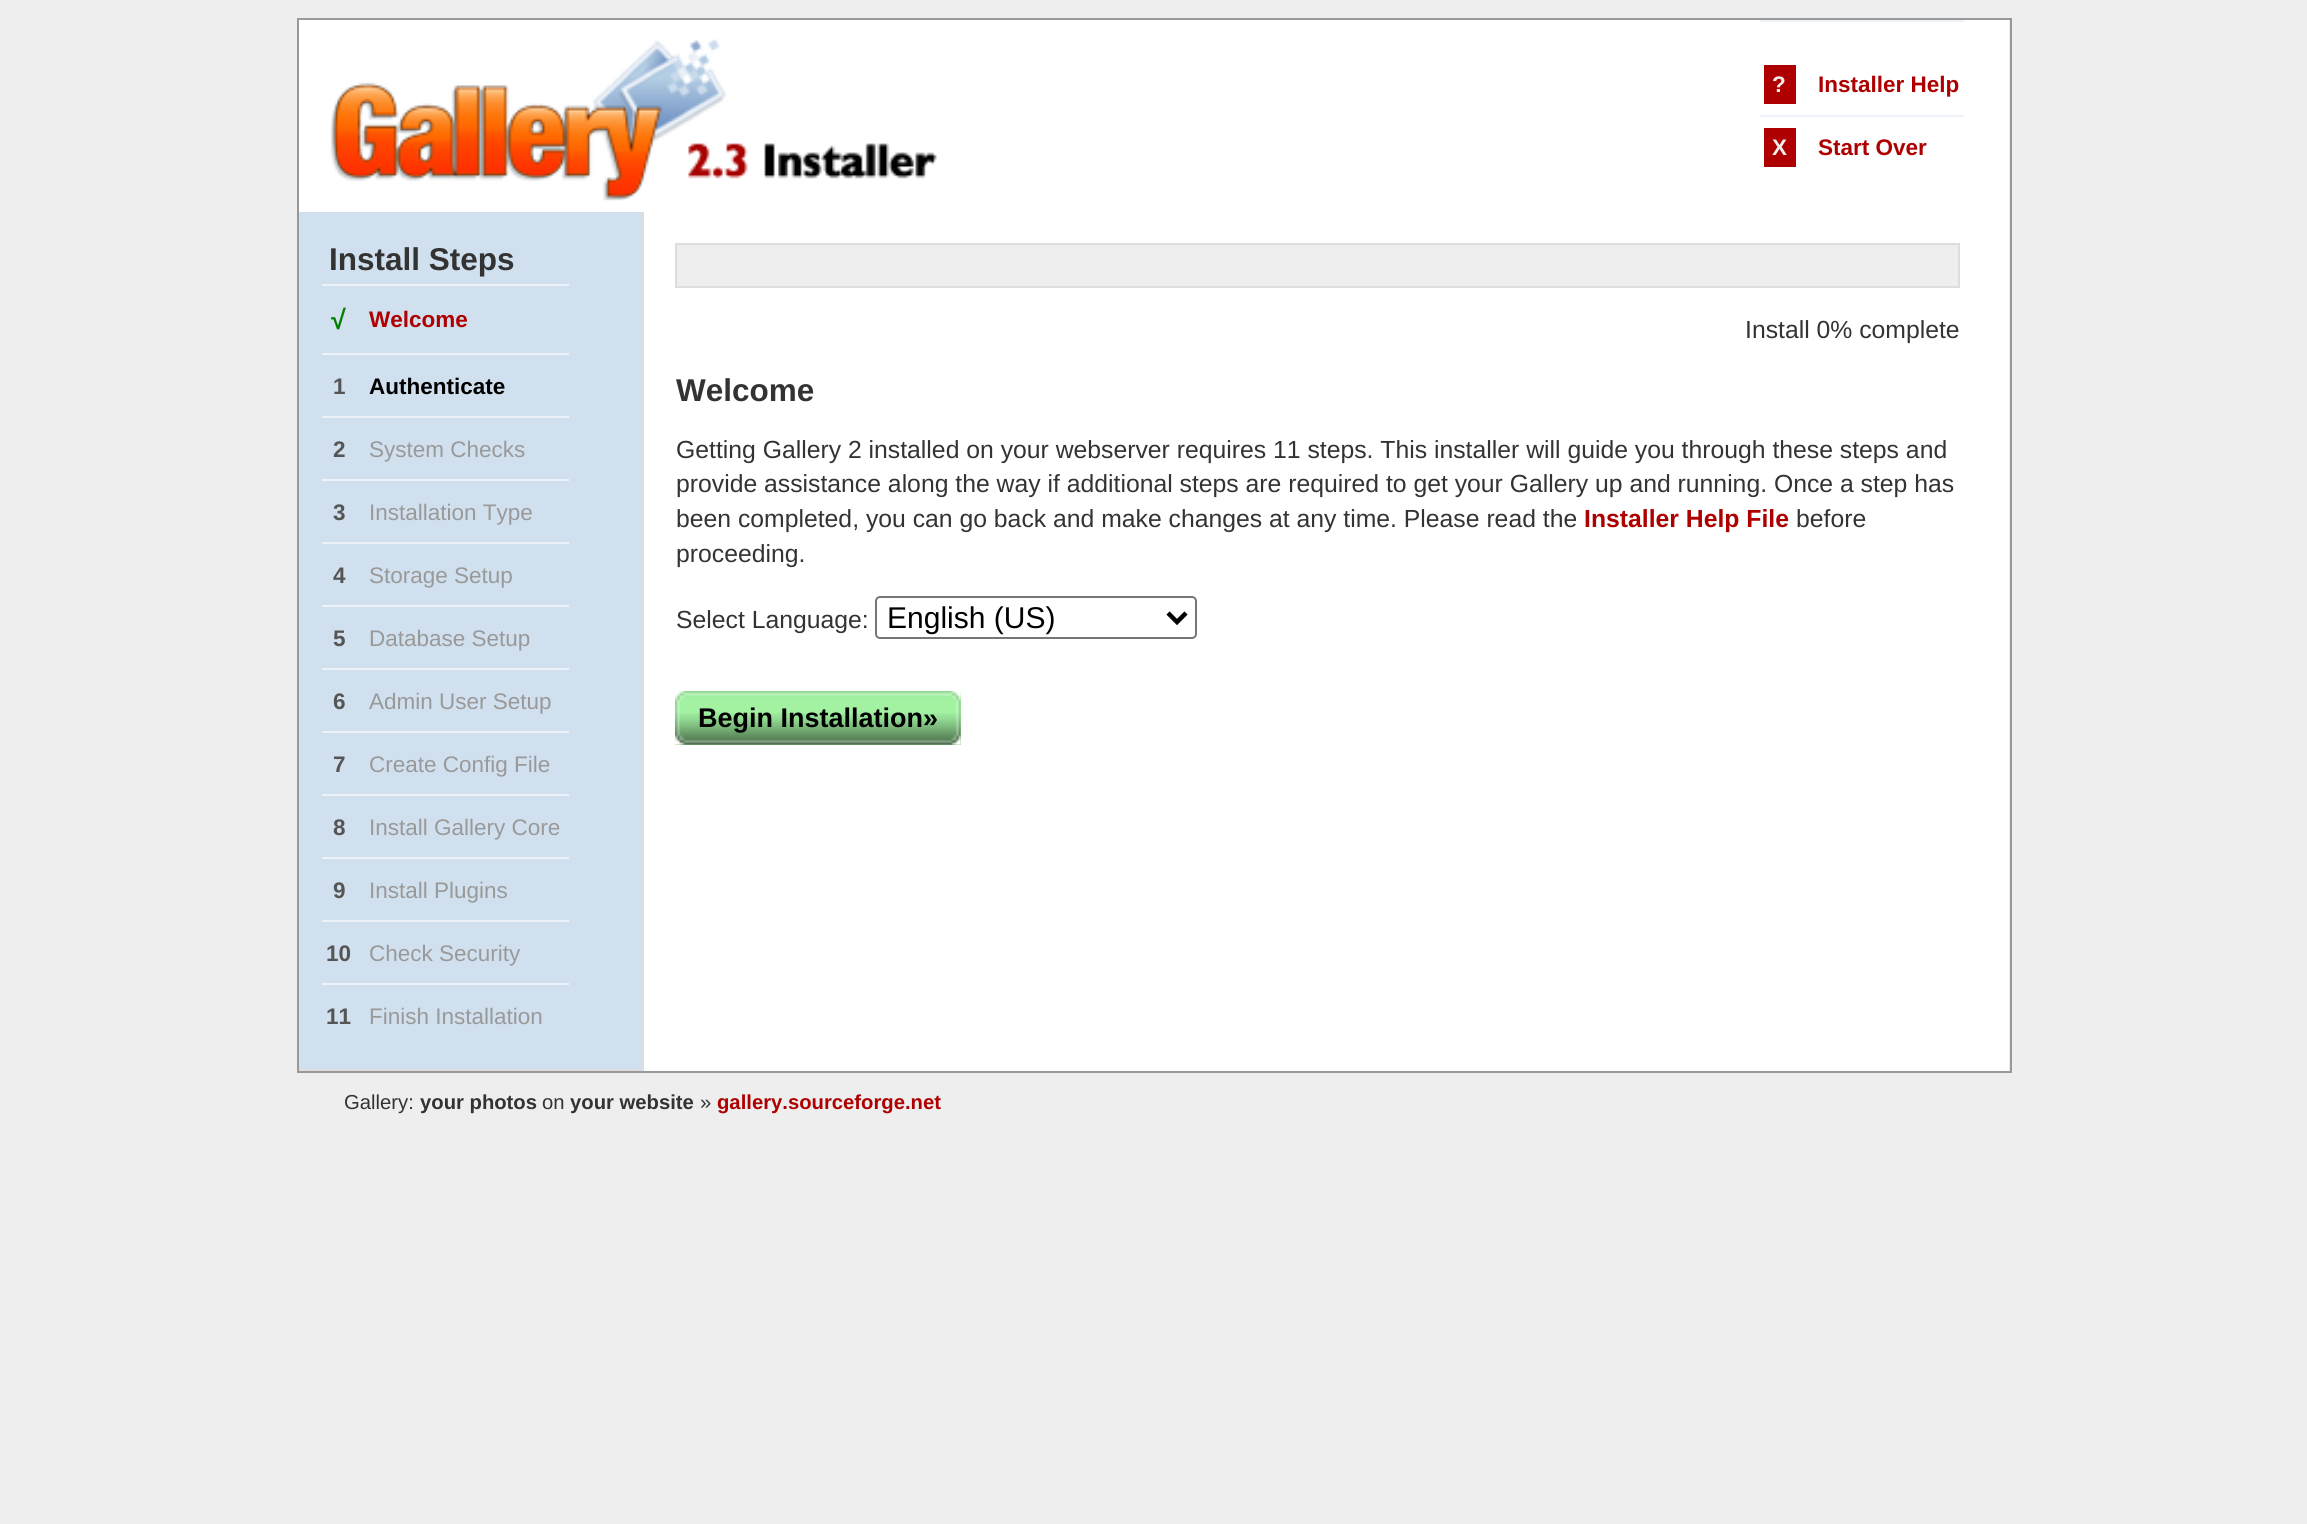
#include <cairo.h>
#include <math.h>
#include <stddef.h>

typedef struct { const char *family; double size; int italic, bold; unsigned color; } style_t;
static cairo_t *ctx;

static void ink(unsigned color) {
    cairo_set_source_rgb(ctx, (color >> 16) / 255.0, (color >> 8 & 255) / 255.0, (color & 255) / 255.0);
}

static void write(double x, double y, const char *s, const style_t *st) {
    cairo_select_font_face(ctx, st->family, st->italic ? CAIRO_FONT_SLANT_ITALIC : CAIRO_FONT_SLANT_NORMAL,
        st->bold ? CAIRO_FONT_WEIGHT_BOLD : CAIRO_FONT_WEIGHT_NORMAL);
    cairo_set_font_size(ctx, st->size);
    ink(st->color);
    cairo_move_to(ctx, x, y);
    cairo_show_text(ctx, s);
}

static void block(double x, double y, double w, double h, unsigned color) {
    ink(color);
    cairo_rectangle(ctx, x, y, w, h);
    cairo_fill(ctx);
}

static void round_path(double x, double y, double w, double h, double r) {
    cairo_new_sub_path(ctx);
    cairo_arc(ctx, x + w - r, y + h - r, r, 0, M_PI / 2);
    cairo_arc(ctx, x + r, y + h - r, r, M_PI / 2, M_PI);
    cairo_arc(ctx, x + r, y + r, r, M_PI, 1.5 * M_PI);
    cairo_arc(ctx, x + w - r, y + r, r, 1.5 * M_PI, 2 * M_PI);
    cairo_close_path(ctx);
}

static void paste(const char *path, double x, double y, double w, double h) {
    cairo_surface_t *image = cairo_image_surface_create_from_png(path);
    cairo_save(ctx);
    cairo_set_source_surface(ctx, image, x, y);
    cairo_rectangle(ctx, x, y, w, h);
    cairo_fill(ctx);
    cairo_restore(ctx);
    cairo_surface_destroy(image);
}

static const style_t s1 = {"Liberation Sans", 22.5, 0, 1, 0xeeeeee};
static const style_t s2 = {"Liberation Sans", 22.5, 0, 1, 0xae0000};
static const style_t s3 = {"Liberation Sans", 31.5, 0, 1, 0x333333};
static const style_t s4 = {"Liberation Sans", 27, 0, 1, 0x008000};
static const style_t s5 = {"Liberation Sans", 22.5, 0, 1, 0x555555};
static const style_t s6 = {"Liberation Sans", 22.5, 0, 1, 0x000000};
static const style_t s7 = {"Liberation Sans", 22.5, 0, 0, 0x999999};
static const style_t s8 = {"Liberation Sans", 24.75, 0, 0, 0x333333};
static const style_t s9 = {"Liberation Sans", 24.75, 0, 1, 0xae0000};
static const style_t s10 = {"Liberation Sans", 30, 0, 0, 0x000000};
static const style_t s11 = {"Liberation Sans", 27, 0, 1, 0x000000};
static const style_t s12 = {"Liberation Sans", 20.25, 0, 0, 0x333333};
static const style_t s13 = {"Liberation Sans", 20.25, 0, 1, 0x333333};
static const style_t s14 = {"Liberation Sans", 20.25, 0, 1, 0xae0000};

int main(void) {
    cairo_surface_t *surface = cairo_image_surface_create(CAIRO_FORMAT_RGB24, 2307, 1524);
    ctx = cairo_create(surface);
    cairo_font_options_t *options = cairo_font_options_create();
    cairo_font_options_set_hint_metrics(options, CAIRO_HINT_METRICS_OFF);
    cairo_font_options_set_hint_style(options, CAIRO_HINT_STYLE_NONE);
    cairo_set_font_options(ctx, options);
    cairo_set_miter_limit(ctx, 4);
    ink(0xeeeeee);
    cairo_paint(ctx);
    cairo_rectangle(ctx, 298, 19, 1713, 1053);
    ink(0x999999);
    cairo_stroke(ctx);
    block(299, 20, 1710, 1051, 0xffffff);
    paste("pic1.png", 330, 38, 607, 163);
    block(1760, 20, 204, 2, 0xecf2f8);
    block(1764, 65, 32, 39, 0xae0000);
    write(1772, 92, "?", &s1);
    write(1818, 92, "Installer Help", &s2);
    block(1760, 115, 204, 2, 0xecf2f8);
    block(1764, 128, 32, 39, 0xae0000);
    write(1772, 155, "X", &s1);
    write(1818, 155, "Start Over", &s2);
    block(299, 212, 345, 857, 0xd1e0ee);
    block(641, 212, 2, 859, 0xdddddd);
    block(299, 1069, 345, 2, 0xdddddd);
    write(329, 270, "Install Steps", &s3);
    block(322, 284, 247, 2, 0xecf2f8);
    write(331, 329, "√", &s4);
    write(369, 327, "Welcome", &s2);
    block(322, 353, 247, 2, 0xecf2f8);
    write(333, 394, "1", &s5);
    write(369, 394, "Authenticate", &s6);
    block(322, 416, 247, 2, 0xecf2f8);
    write(333, 457, "2", &s5);
    write(369, 457, "System Checks", &s7);
    block(322, 479, 247, 2, 0xecf2f8);
    write(333, 520, "3", &s5);
    write(369, 520, "Installation Type", &s7);
    block(322, 542, 247, 2, 0xecf2f8);
    write(333, 583, "4", &s5);
    write(369, 583, "Storage Setup", &s7);
    block(322, 605, 247, 2, 0xecf2f8);
    write(333, 646, "5", &s5);
    write(369, 646, "Database Setup", &s7);
    block(322, 668, 247, 2, 0xecf2f8);
    write(333, 709, "6", &s5);
    write(369, 709, "Admin User Setup", &s7);
    block(322, 731, 247, 2, 0xecf2f8);
    write(333, 772, "7", &s5);
    write(369, 772, "Create Config File", &s7);
    block(322, 794, 247, 2, 0xecf2f8);
    write(333, 835, "8", &s5);
    write(369, 835, "Install Gallery Core", &s7);
    block(322, 857, 247, 2, 0xecf2f8);
    write(333, 898, "9", &s5);
    write(369, 898, "Install Plugins", &s7);
    block(322, 920, 247, 2, 0xecf2f8);
    write(326, 961, "10", &s5);
    write(369, 961, "Check Security", &s7);
    block(322, 983, 247, 2, 0xecf2f8);
    write(326, 1024, "11", &s5);
    write(369, 1024, "Finish Installation", &s7);
    block(677, 245, 1281, 41, 0xeeeeee);
    block(675, 243, 1285, 2, 0xdddddd);
    block(1958, 243, 2, 45, 0xdddddd);
    block(675, 286, 1285, 2, 0xdddddd);
    block(675, 243, 2, 45, 0xdddddd);
    write(1745, 338, "Install 0% complete", &s8);
    write(676, 401, "Welcome", &s3);
    write(676, 458, "Getting Gallery 2 installed on your webserver requires 11 steps. This installer will guide you through these steps and", &s8);
    write(676, 492, "provide assistance along the way if additional steps are required to get your Gallery up and running. Once a step has", &s8);
    write(676, 527, "been completed, you can go back and make changes at any time. Please read the", &s8);
    write(1584, 527, "Installer Help File", &s9);
    write(1796, 527, "before", &s8);
    write(676, 562, "proceeding.", &s8);
    write(676, 628, "Select Language:", &s8);
    round_path(876, 597, 320, 41, 4);
    ink(0x767676);
    cairo_stroke(ctx);
    cairo_new_path(ctx);
    cairo_move_to(ctx, 1168, 613);
    cairo_line_to(ctx, 1177, 622);
    cairo_line_to(ctx, 1186, 613);
    ink(0x000000);
    cairo_set_line_width(ctx, 4.5);
    cairo_stroke(ctx);
    write(887, 628, "English (US)", &s10);
    block(675, 691, 286, 54, 0xa2f2a2);
    paste("pic2.png", 675, 713, 286, 32);
    paste("pic3.png", 675, 690, 12, 12);
    paste("pic4.png", 675, 702, 264, 43);
    paste("pic5.png", 686, 690, 275, 12);
    write(698, 727, "Begin Installation»", &s11);
    paste("pic6.png", 938, 702, 23, 43);
    write(344, 1109, "Gallery:", &s12);
    write(420, 1109, "your photos", &s13);
    write(542, 1109, "on", &s12);
    write(570, 1109, "your website", &s13);
    write(700, 1109, "»", &s12);
    write(717, 1109, "gallery.sourceforge.net", &s14);
    cairo_surface_write_to_png(surface, "screenshot.png");
    cairo_font_options_destroy(options);
    cairo_destroy(ctx);
    cairo_surface_destroy(surface);
    return 0;
}
